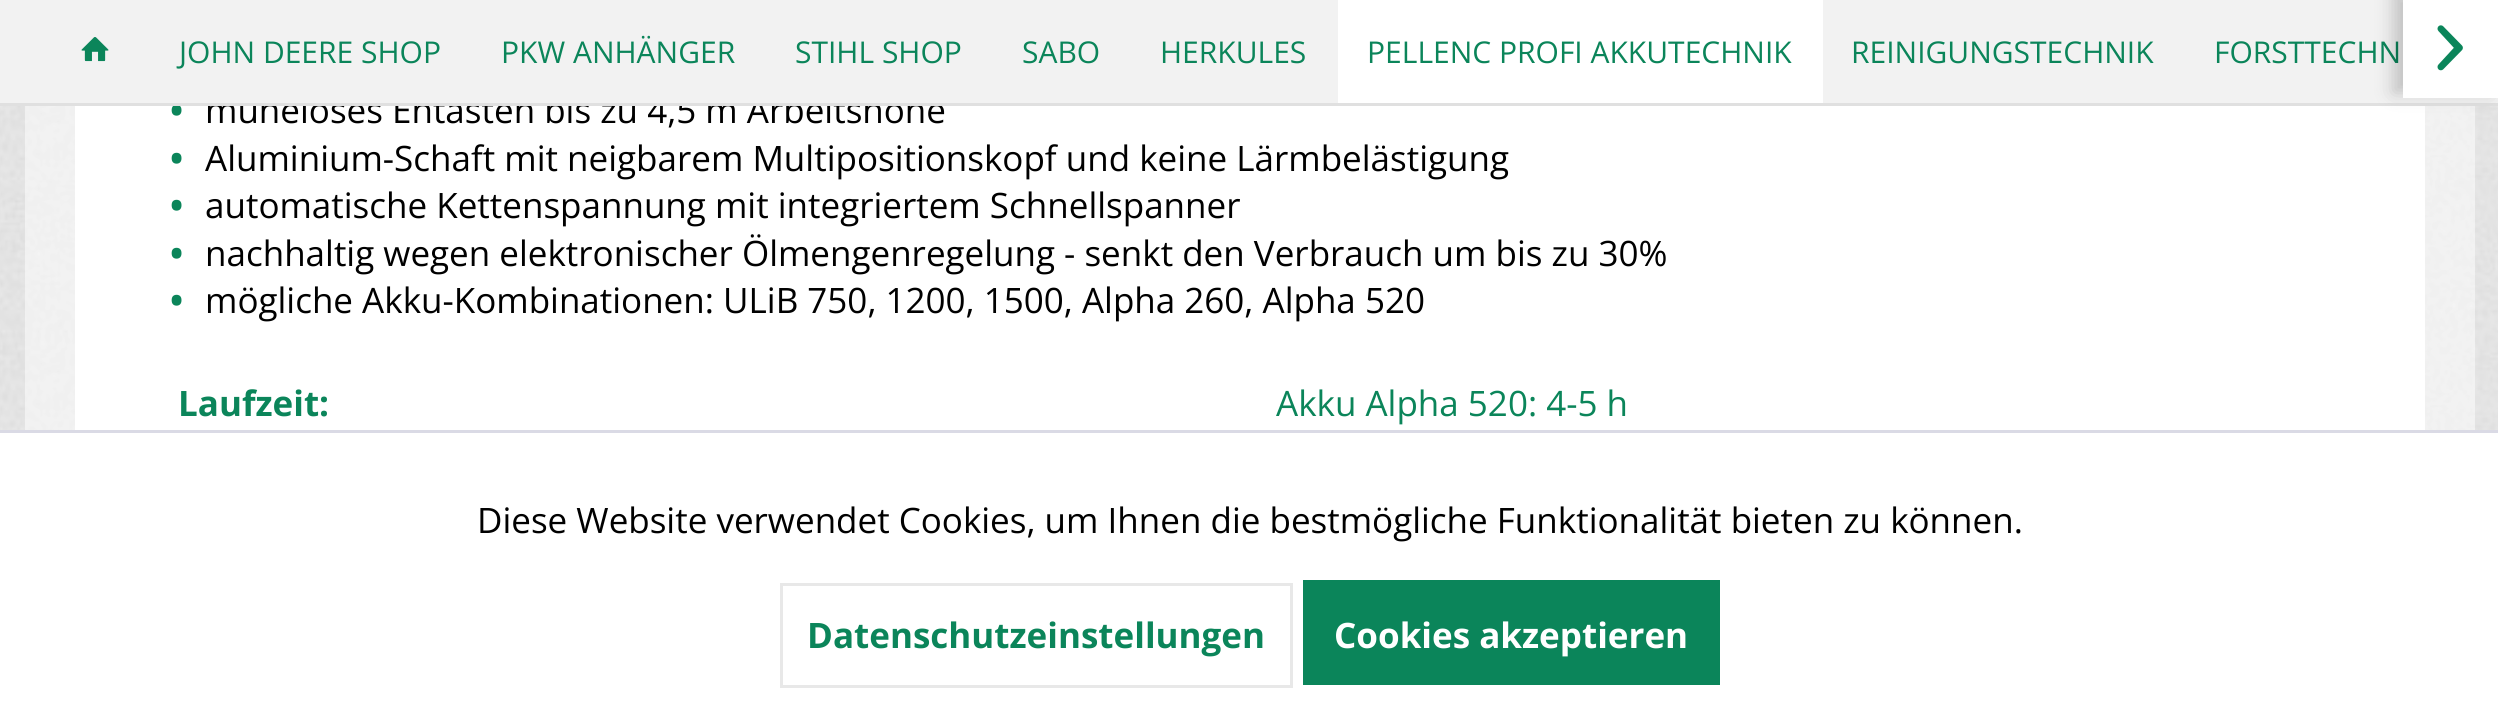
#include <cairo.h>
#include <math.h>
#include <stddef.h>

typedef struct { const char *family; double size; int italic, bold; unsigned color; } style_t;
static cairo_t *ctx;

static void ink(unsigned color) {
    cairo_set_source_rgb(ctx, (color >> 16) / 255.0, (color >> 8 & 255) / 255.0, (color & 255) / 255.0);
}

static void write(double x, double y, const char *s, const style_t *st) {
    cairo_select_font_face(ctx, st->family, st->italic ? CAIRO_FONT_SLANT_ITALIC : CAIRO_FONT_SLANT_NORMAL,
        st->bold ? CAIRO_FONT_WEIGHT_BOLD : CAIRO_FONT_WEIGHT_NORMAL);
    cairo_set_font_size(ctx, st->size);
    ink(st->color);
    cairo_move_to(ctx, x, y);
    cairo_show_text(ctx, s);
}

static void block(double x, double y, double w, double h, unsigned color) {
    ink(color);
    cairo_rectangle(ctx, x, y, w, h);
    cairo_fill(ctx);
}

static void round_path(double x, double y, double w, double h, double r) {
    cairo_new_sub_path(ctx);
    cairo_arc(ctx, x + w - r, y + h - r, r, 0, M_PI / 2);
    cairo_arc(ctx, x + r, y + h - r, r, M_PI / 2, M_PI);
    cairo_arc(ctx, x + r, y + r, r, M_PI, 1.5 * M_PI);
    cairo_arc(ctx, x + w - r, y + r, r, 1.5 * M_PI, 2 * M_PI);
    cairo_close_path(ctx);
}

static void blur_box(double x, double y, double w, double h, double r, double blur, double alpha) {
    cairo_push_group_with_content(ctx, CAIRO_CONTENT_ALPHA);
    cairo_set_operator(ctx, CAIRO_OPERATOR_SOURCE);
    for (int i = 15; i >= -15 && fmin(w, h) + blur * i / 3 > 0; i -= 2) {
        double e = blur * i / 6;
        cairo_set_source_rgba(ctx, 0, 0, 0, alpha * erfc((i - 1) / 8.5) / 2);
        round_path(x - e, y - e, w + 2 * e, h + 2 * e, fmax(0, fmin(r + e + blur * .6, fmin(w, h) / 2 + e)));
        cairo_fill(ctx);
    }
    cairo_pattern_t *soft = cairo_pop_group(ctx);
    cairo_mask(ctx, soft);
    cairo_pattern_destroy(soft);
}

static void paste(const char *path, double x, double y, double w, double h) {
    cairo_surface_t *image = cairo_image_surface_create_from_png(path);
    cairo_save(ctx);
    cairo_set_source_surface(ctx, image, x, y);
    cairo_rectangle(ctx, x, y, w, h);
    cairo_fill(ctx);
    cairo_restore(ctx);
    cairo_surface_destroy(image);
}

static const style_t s1 = {"Open Sans", 35, 0, 0, 0x000000};
static const style_t s2 = {"Open Sans", 35, 0, 1, 0x0b855a};
static const style_t s3 = {"Open Sans", 30, 0, 0, 0x0b855a};
static const style_t s4 = {"Open Sans", 35, 0, 0, 0x0b855a};
static const style_t s5 = {"Open Sans", 35, 0, 1, 0xffffff};

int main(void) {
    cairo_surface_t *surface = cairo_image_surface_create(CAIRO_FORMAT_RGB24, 2498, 724);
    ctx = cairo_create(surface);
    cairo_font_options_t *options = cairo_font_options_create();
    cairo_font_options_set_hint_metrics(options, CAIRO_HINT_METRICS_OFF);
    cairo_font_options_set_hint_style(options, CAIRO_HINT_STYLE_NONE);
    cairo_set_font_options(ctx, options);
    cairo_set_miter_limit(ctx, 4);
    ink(0xffffff);
    cairo_paint(ctx);
    paste("pic1.png", 0, 106, 2498, 324);
    block(75, 106, 2350, 324, 0xffffff);
    write(205, 123, "müheloses Entasten bis zu 4,5 m Arbeitshöhe", &s1);
    block(0, 0, 2498, 103, 0xf2f2f2);
    write(170, 123, "•", &s2);
    block(0, 103, 2498, 3, 0xe0e0e0);
    paste("pic2.png", 81, 37, 28, 25);
    write(179, 63, "JOHN DEERE SHOP", &s3);
    write(501, 63, "PKW ANHÄNGER", &s3);
    write(795, 63, "STIHL SHOP", &s3);
    write(1022, 63, "SABO", &s3);
    write(1160, 63, "HERKULES", &s3);
    block(1338, 0, 485, 103, 0xffffff);
    write(1367, 63, "PELLENC PROFI AKKUTECHNIK", &s3);
    write(1851, 63, "REINIGUNGSTECHNIK", &s3);
    write(2214, 63, "FORSTTECHN", &s3);
    ink(0x000000);
    blur_box(2393, -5, 97, 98, 0, 9, 0.2);
    block(2403, 0, 95, 98, 0xffffff);
    paste("pic3.png", 2437, 25, 26, 46);
    write(170, 171, "•", &s2);
    write(205, 171, "Aluminium-Schaft mit neigbarem Multipositionskopf und keine Lärmbelästigung", &s1);
    write(170, 218, "•", &s2);
    write(205, 218, "automatische Kettenspannung mit integriertem Schnellspanner", &s1);
    write(170, 266, "•", &s2);
    write(205, 266, "nachhaltig wegen elektronischer Ölmengenregelung - senkt den Verbrauch um bis zu 30%", &s1);
    write(170, 313, "•", &s2);
    write(205, 313, "mögliche Akku-Kombinationen: ULiB 750, 1200, 1500, Alpha 260, Alpha 520", &s1);
    write(178, 416, "Laufzeit:", &s2);
    write(1276, 416, "Akku Alpha 520: 4-5 h", &s4);
    block(0, 430, 2498, 3, 0xdadae5);
    write(477, 533, "Diese Website verwendet Cookies, um Ihnen die bestmögliche Funktionalität bieten zu können.", &s1);
    cairo_rectangle(ctx, 781.5, 584.5, 510, 102);
    ink(0xe8e8e8);
    cairo_set_line_width(ctx, 3);
    cairo_stroke(ctx);
    write(807, 648, "Datenschutzeinstellungen", &s2);
    block(1303, 580, 417, 105, 0x0b855a);
    write(1334, 648, "Cookies akzeptieren", &s5);
    cairo_surface_write_to_png(surface, "screenshot.png");
    cairo_font_options_destroy(options);
    cairo_destroy(ctx);
    cairo_surface_destroy(surface);
    return 0;
}
